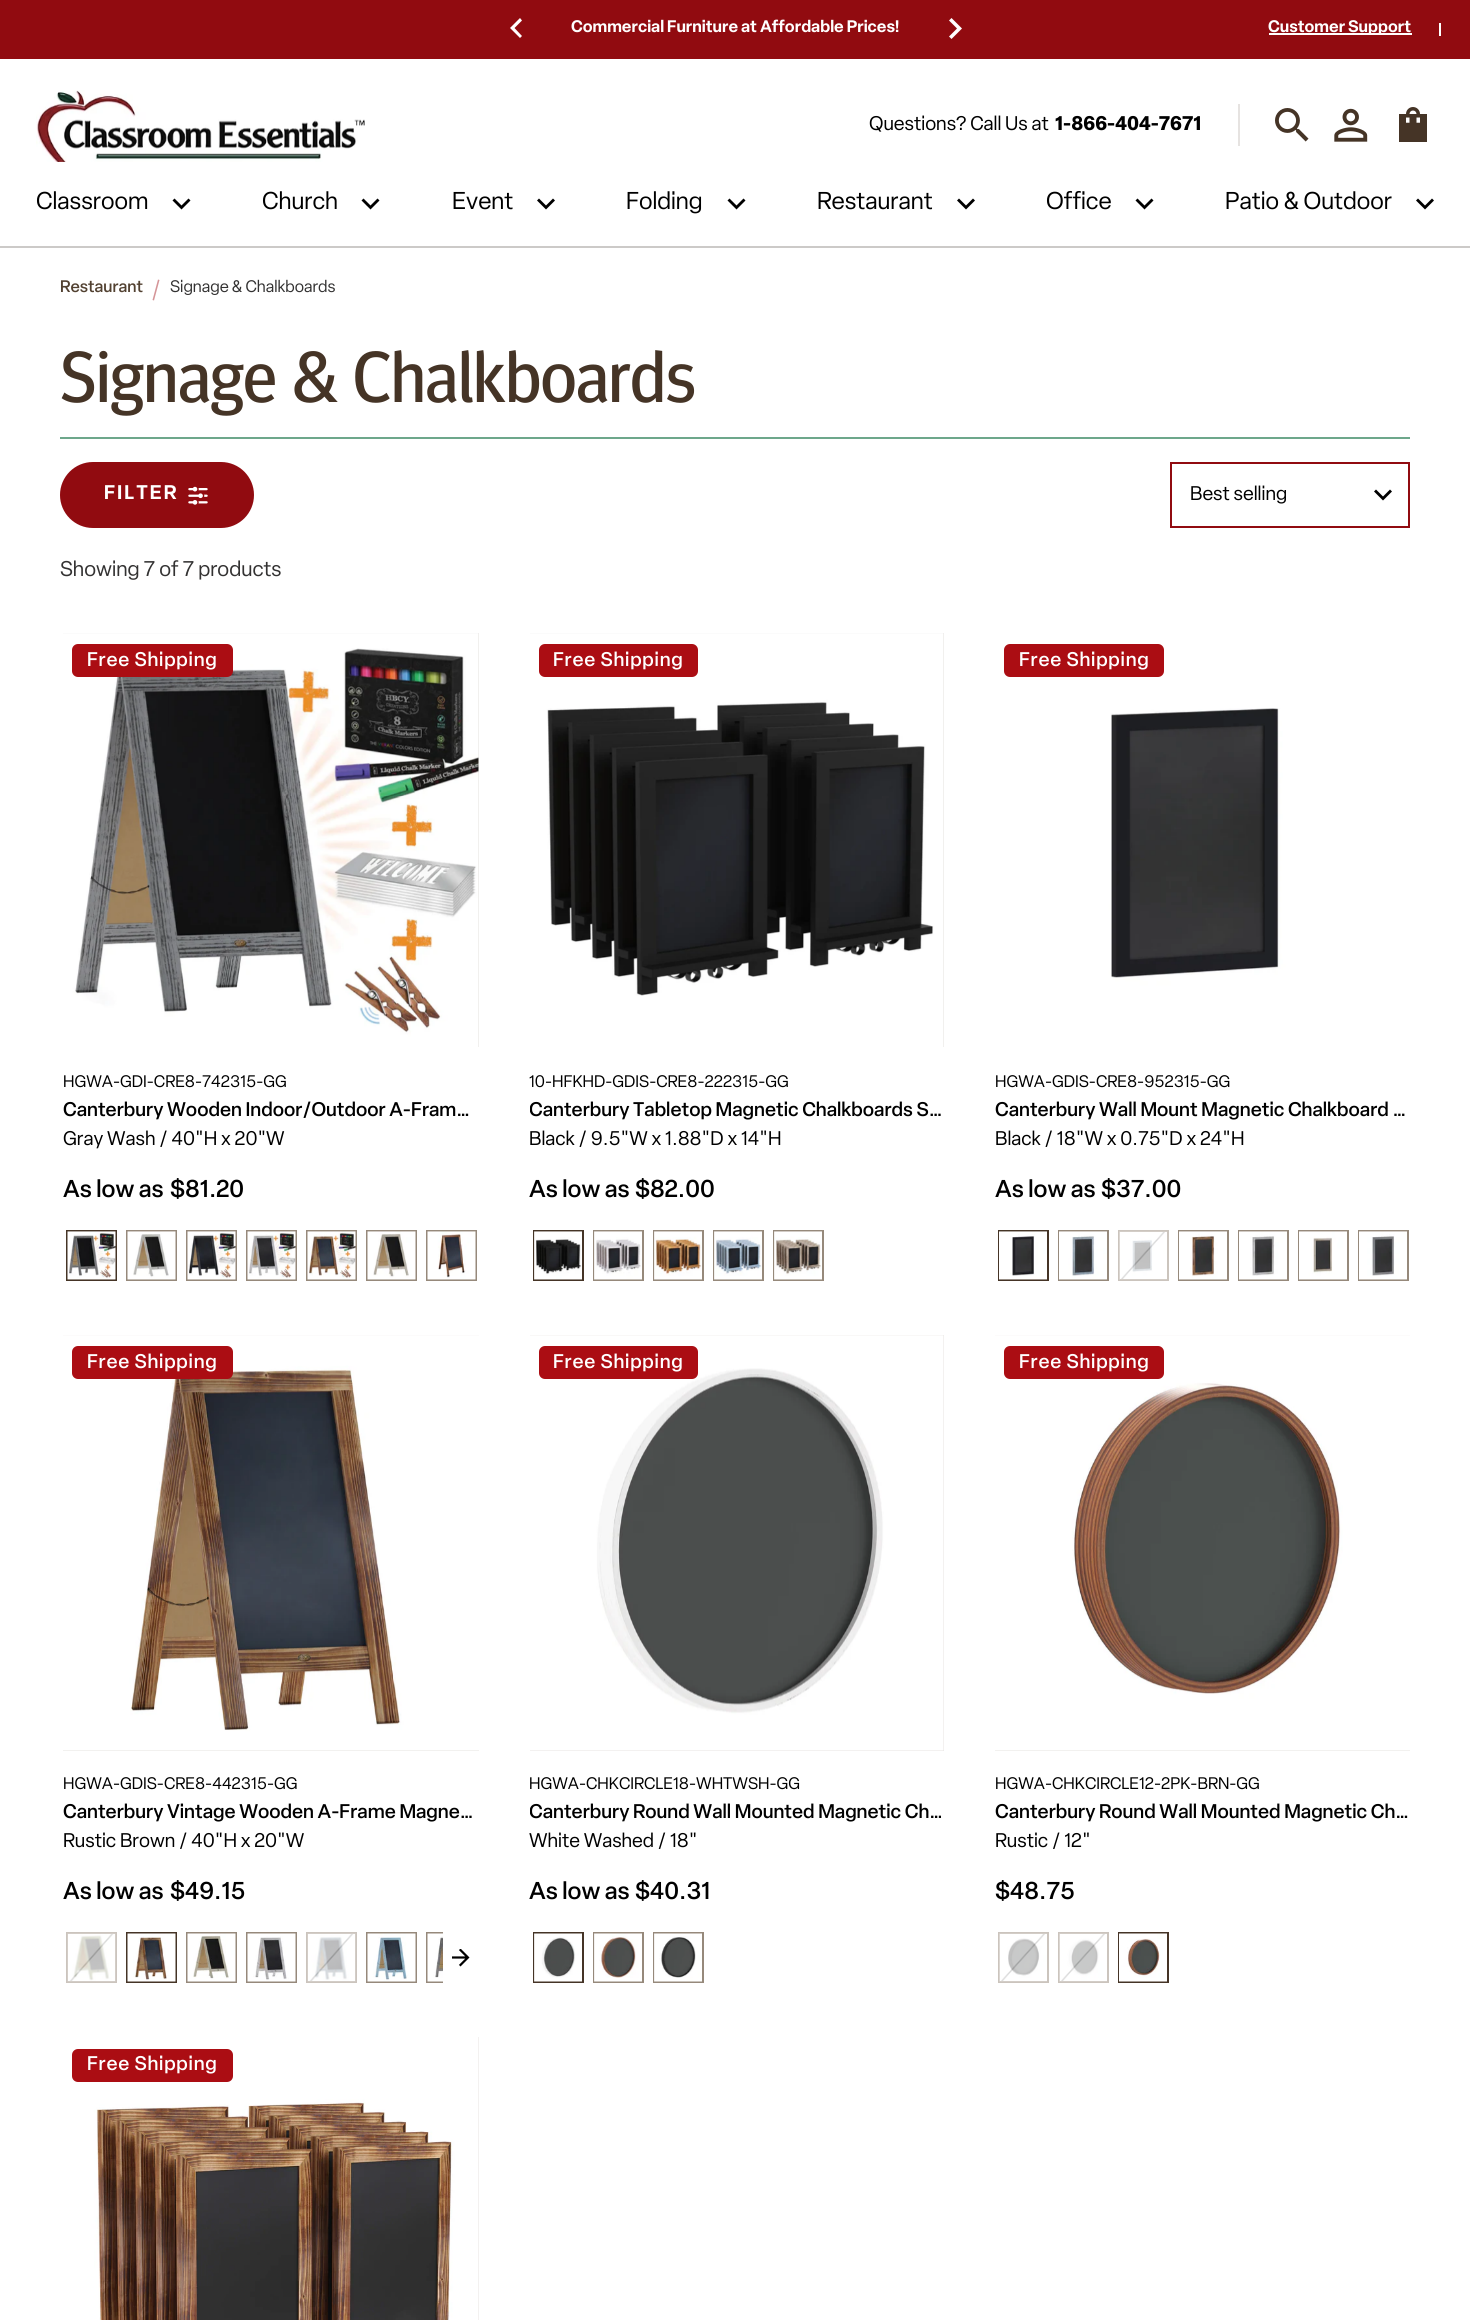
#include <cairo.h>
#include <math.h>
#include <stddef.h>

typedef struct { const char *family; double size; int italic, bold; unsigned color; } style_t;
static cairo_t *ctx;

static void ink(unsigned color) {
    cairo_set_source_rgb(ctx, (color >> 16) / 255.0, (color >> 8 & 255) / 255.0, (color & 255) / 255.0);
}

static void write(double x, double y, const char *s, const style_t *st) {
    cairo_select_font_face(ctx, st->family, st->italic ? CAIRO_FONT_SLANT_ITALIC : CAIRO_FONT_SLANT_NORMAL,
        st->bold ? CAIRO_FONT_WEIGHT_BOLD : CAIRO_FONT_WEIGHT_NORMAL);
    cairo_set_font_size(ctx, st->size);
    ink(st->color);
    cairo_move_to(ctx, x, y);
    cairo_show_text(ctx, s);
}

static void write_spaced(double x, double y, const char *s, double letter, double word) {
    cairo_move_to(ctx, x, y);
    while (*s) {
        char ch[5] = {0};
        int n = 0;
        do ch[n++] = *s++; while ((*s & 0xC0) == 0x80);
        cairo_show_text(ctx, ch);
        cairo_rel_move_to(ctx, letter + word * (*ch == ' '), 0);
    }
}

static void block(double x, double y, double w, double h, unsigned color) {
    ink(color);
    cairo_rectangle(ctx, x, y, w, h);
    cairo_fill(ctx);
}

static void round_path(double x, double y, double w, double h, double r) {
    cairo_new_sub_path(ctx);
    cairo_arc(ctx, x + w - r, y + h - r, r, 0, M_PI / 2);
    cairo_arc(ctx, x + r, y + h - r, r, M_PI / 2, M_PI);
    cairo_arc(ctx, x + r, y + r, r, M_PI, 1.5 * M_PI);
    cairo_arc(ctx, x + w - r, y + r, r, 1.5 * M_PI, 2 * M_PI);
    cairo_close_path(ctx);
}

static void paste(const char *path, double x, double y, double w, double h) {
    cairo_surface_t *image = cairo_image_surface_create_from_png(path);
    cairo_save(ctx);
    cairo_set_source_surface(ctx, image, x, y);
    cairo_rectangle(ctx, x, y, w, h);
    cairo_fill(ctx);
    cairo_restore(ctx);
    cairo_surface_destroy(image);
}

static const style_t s1 = {"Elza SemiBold", 16.5, 0, 0, 0xffffff};
static const style_t s2 = {"Elza", 19.5, 0, 0, 0x000000};
static const style_t s3 = {"Elza", 19.5, 0, 1, 0x000000};
static const style_t s4 = {"Elza", 24, 0, 0, 0x000000};
static const style_t s5 = {"Elza Medium", 16.5, 0, 0, 0x524131};
static const style_t s6 = {"Elza", 16.5, 0, 0, 0x333232};
static const style_t s7 = {"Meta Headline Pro", 72, 0, 0, 0x453426};
static const style_t s8 = {"Elza", 21, 0, 0, 0x333232};
static const style_t s9 = {"Elza", 16.5, 0, 0, 0x000000};
static const style_t s10 = {"Elza Medium", 19.5, 0, 0, 0x000000};
static const style_t s11 = {"Elza Medium", 24, 0, 0, 0x000000};

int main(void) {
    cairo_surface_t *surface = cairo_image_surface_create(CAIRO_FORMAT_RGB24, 1470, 2320);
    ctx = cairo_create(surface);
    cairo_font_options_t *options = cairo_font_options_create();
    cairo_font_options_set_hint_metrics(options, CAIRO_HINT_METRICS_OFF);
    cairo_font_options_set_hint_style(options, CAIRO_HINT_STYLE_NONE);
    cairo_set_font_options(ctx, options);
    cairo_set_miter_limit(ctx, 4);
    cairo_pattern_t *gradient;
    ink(0xffffff);
    cairo_paint(ctx);
    block(0, 0, 1470, 59, 0x910b10);
    ink(0xffffff);
    cairo_new_path(ctx);
    cairo_move_to(ctx, 522, 20.5);
    cairo_line_to(ctx, 514.5, 28);
    cairo_line_to(ctx, 522, 36);
    cairo_line_to(ctx, 520, 38);
    cairo_line_to(ctx, 510, 28);
    cairo_line_to(ctx, 520, 18);
    cairo_close_path(ctx);
    cairo_fill(ctx);
    write(571, 32, "Commercial Furniture at Affordable Prices!", &s1);
    cairo_new_path(ctx);
    cairo_move_to(ctx, 949, 36.5);
    cairo_line_to(ctx, 957, 28.5);
    cairo_line_to(ctx, 949, 20.5);
    cairo_line_to(ctx, 951.5, 18);
    cairo_line_to(ctx, 962, 28.5);
    cairo_line_to(ctx, 951.5, 39);
    cairo_close_path(ctx);
    cairo_fill(ctx);
    block(1269, 33, 143, 2, 0xffffff);
    write(1268, 32, "Customer Support", &s1);
    block(1439, 23, 2, 13, 0xffffff);
    block(0, 246, 1470, 2, 0xcccac8);
    paste("pic1.png", 36, 90, 329, 72);
    write(869, 130, "Questions? Call Us at", &s2);
    write(1055, 130, "1-866-404-7671", &s3);
    block(1238, 104, 2, 42, 0xe6e3e1);
    paste("pic2.png", 1275, 108, 34, 34);
    paste("pic3.png", 1334, 108, 34, 34);
    paste("pic4.png", 1399, 107, 28, 35);
    write(36, 209, "Classroom", &s4);
    cairo_new_path(ctx);
    cairo_move_to(ctx, 188.5, 198.5);
    cairo_line_to(ctx, 181.5, 205.5);
    cairo_line_to(ctx, 174.5, 198.5);
    cairo_line_to(ctx, 172.5, 200.5);
    cairo_line_to(ctx, 181.5, 209.5);
    cairo_line_to(ctx, 190.5, 200.5);
    cairo_close_path(ctx);
    cairo_fill(ctx);
    write(262, 209, "Church", &s4);
    cairo_new_path(ctx);
    cairo_move_to(ctx, 377.5, 198.5);
    cairo_line_to(ctx, 370.5, 205.5);
    cairo_line_to(ctx, 363.5, 198.5);
    cairo_line_to(ctx, 361.5, 200.5);
    cairo_line_to(ctx, 370.5, 209.5);
    cairo_line_to(ctx, 379.5, 200.5);
    cairo_close_path(ctx);
    cairo_fill(ctx);
    write(452, 209, "Event", &s4);
    cairo_new_path(ctx);
    cairo_move_to(ctx, 553, 198.5);
    cairo_line_to(ctx, 546, 205.5);
    cairo_line_to(ctx, 539, 198.5);
    cairo_line_to(ctx, 537, 200.5);
    cairo_line_to(ctx, 546, 209.5);
    cairo_line_to(ctx, 555, 200.5);
    cairo_close_path(ctx);
    cairo_fill(ctx);
    write(626, 209, "Folding", &s4);
    cairo_new_path(ctx);
    cairo_move_to(ctx, 743.5, 198.5);
    cairo_line_to(ctx, 736.5, 205.5);
    cairo_line_to(ctx, 729.5, 198.5);
    cairo_line_to(ctx, 727.5, 200.5);
    cairo_line_to(ctx, 736.5, 209.5);
    cairo_line_to(ctx, 745.5, 200.5);
    cairo_close_path(ctx);
    cairo_fill(ctx);
    write(817, 209, "Restaurant", &s4);
    cairo_new_path(ctx);
    cairo_move_to(ctx, 973, 198.5);
    cairo_line_to(ctx, 966, 205.5);
    cairo_line_to(ctx, 959, 198.5);
    cairo_line_to(ctx, 957, 200.5);
    cairo_line_to(ctx, 966, 209.5);
    cairo_line_to(ctx, 975, 200.5);
    cairo_close_path(ctx);
    cairo_fill(ctx);
    write(1046, 209, "Office", &s4);
    cairo_new_path(ctx);
    cairo_move_to(ctx, 1151.5, 198.5);
    cairo_line_to(ctx, 1144.5, 205.5);
    cairo_line_to(ctx, 1137.5, 198.5);
    cairo_line_to(ctx, 1135.5, 200.5);
    cairo_line_to(ctx, 1144.5, 209.5);
    cairo_line_to(ctx, 1153.5, 200.5);
    cairo_close_path(ctx);
    cairo_fill(ctx);
    write(1225, 209, "Patio & Outdoor", &s4);
    cairo_new_path(ctx);
    cairo_move_to(ctx, 1432, 198.5);
    cairo_line_to(ctx, 1425, 205.5);
    cairo_line_to(ctx, 1418, 198.5);
    cairo_line_to(ctx, 1416, 200.5);
    cairo_line_to(ctx, 1425, 209.5);
    cairo_line_to(ctx, 1434, 200.5);
    cairo_close_path(ctx);
    cairo_fill(ctx);
    write(60, 292, "Restaurant", &s5);
    ink(0xd59598);
    cairo_new_path(ctx);
    cairo_move_to(ctx, 152.5, 300);
    cairo_line_to(ctx, 158, 279.5);
    cairo_line_to(ctx, 159.5, 280);
    cairo_line_to(ctx, 154, 300.5);
    cairo_close_path(ctx);
    cairo_fill(ctx);
    write(170, 292, "Signage & Chalkboards", &s6);
    write(60, 402, "Signage & Chalkboards", &s7);
    block(60, 437, 1350, 2, 0x6da78b);
    ink(0x910b10);
    round_path(61, 463, 192, 64, 32);
    cairo_fill_preserve(ctx);
    cairo_stroke(ctx);
    cairo_select_font_face(ctx, "Elza SemiBold", CAIRO_FONT_SLANT_NORMAL, CAIRO_FONT_WEIGHT_NORMAL);
    cairo_set_font_size(ctx, 19.5);
    ink(0xffffff);
    write_spaced(104, 499, "FILTER", 2, 0);
    paste("pic5.png", 188, 486, 20, 19);
    cairo_rectangle(ctx, 1171, 463, 238, 64);
    ink(0x910b10);
    cairo_stroke(ctx);
    write(1190, 500, "Best selling", &s2);
    cairo_new_path(ctx);
    cairo_move_to(ctx, 1390, 489.5);
    cairo_line_to(ctx, 1383, 496.5);
    cairo_line_to(ctx, 1376, 489.5);
    cairo_line_to(ctx, 1374, 491.5);
    cairo_line_to(ctx, 1383, 500.5);
    cairo_line_to(ctx, 1392, 491.5);
    cairo_close_path(ctx);
    cairo_fill(ctx);
    write(60, 576, "Showing 7 of 7 products", &s8);
    block(63, 633, 416, 414, 0xe6e3e1);
    paste("pic6.png", 63, 633, 416, 414);
    ink(0xab0d13);
    round_path(72, 644, 161, 33, 6);
    cairo_fill(ctx);
    cairo_select_font_face(ctx, "Elza Medium", CAIRO_FONT_SLANT_NORMAL, CAIRO_FONT_WEIGHT_NORMAL);
    cairo_set_font_size(ctx, 19.5);
    ink(0xffffff);
    write_spaced(87, 666, "Free Shipping", 0.75, 0);
    write(63, 1087, "HGWA-GDI-CRE8-742315-GG", &s9);
    write(63, 1116, "Canterbury Wooden Indoor/Outdoor A-Fram…", &s10);
    write(63, 1145, "Gray Wash / 40\"H x 20\"W", &s2);
    write(63, 1197, "As low as", &s11);
    write(170, 1197, "$81.20", &s11);
    cairo_rectangle(ctx, 67, 1231, 49, 49);
    ink(0x453426);
    cairo_stroke(ctx);
    paste("pic7.png", 67, 1231, 49, 49);
    cairo_rectangle(ctx, 127, 1231, 49, 49);
    ink(0x96897b);
    cairo_stroke(ctx);
    paste("pic8.png", 127, 1231, 49, 49);
    cairo_rectangle(ctx, 187, 1231, 49, 49);
    cairo_stroke(ctx);
    paste("pic9.png", 187, 1231, 49, 49);
    cairo_rectangle(ctx, 247, 1231, 49, 49);
    cairo_stroke(ctx);
    paste("pic10.png", 247, 1231, 49, 49);
    cairo_rectangle(ctx, 307, 1231, 49, 49);
    cairo_stroke(ctx);
    paste("pic11.png", 307, 1231, 49, 49);
    cairo_rectangle(ctx, 367, 1231, 49, 49);
    cairo_stroke(ctx);
    paste("pic12.png", 367, 1231, 49, 49);
    cairo_rectangle(ctx, 427, 1231, 49, 49);
    cairo_stroke(ctx);
    paste("pic13.png", 427, 1231, 49, 49);
    block(530, 633, 414, 414, 0xe6e3e1);
    paste("pic14.png", 530, 633, 414, 414);
    ink(0xab0d13);
    round_path(539, 644, 159, 33, 6);
    cairo_fill(ctx);
    cairo_set_font_size(ctx, 19.5);
    ink(0xffffff);
    write_spaced(553, 666, "Free Shipping", 0.75, 0);
    write(529, 1087, "10-HFKHD-GDIS-CRE8-222315-GG", &s9);
    cairo_save(ctx);
    cairo_rectangle(ctx, 530, 1097, 414, 28);
    cairo_clip(ctx);
    write(529, 1116, "Canterbury Tabletop Magnetic Chalkboards S…", &s10);
    cairo_restore(ctx);
    write(529, 1145, "Black / 9.5\"W x 1.88\"D x 14\"H", &s2);
    write(529, 1197, "As low as", &s11);
    write(635, 1197, "$82.00", &s11);
    cairo_rectangle(ctx, 534, 1231, 49, 49);
    ink(0x453426);
    cairo_stroke(ctx);
    paste("pic15.png", 534, 1231, 48, 49);
    cairo_rectangle(ctx, 594, 1231, 49, 49);
    ink(0x96897b);
    cairo_stroke(ctx);
    paste("pic16.png", 594, 1231, 48, 49);
    cairo_rectangle(ctx, 654, 1231, 49, 49);
    cairo_stroke(ctx);
    paste("pic17.png", 654, 1231, 48, 49);
    cairo_rectangle(ctx, 714, 1231, 49, 49);
    cairo_stroke(ctx);
    paste("pic18.png", 714, 1231, 48, 49);
    cairo_rectangle(ctx, 774, 1231, 49, 49);
    cairo_stroke(ctx);
    paste("pic19.png", 774, 1231, 48, 49);
    paste("pic20.png", 995, 633, 415, 414);
    ink(0xab0d13);
    round_path(1004, 644, 160, 33, 6);
    cairo_fill(ctx);
    cairo_set_font_size(ctx, 19.5);
    ink(0xffffff);
    write_spaced(1019, 666, "Free Shipping", 0.75, 0);
    write(995, 1087, "HGWA-GDIS-CRE8-952315-GG", &s9);
    write(995, 1116, "Canterbury Wall Mount Magnetic Chalkboard …", &s10);
    write(995, 1145, "Black / 18\"W x 0.75\"D x 24\"H", &s2);
    write(995, 1197, "As low as", &s11);
    write(1101, 1197, "$37.00", &s11);
    cairo_rectangle(ctx, 999, 1231, 49, 49);
    ink(0x453426);
    cairo_stroke(ctx);
    paste("pic21.png", 999, 1231, 48, 49);
    cairo_rectangle(ctx, 1059, 1231, 49, 49);
    ink(0x96897b);
    cairo_stroke(ctx);
    paste("pic22.png", 1059, 1231, 48, 49);
    gradient = cairo_pattern_create_linear(1118, 1233, 1168, 1278);
    cairo_pattern_add_color_stop_rgba(gradient, 0, 1, 1, 1, 1);
    cairo_pattern_add_color_stop_rgba(gradient, 0.48, 1, 1, 1, 1);
    cairo_pattern_add_color_stop_rgba(gradient, 0.5, 0.788, 0.788, 0.788, 1);
    cairo_pattern_add_color_stop_rgba(gradient, 0.52, 1, 1, 1, 1);
    cairo_pattern_add_color_stop_rgba(gradient, 1, 1, 1, 1, 1);
    cairo_set_source(ctx, gradient);
    cairo_pattern_destroy(gradient);
    cairo_rectangle(ctx, 1121, 1232, 44, 47);
    cairo_fill(ctx);
    cairo_rectangle(ctx, 1119, 1231, 49, 49);
    ink(0xcbc4bd);
    cairo_stroke(ctx);
    paste("pic23.png", 1119, 1231, 48, 49);
    cairo_rectangle(ctx, 1179, 1231, 49, 49);
    ink(0x96897b);
    cairo_stroke(ctx);
    paste("pic24.png", 1179, 1231, 48, 49);
    cairo_rectangle(ctx, 1239, 1231, 49, 49);
    cairo_stroke(ctx);
    paste("pic25.png", 1239, 1231, 48, 49);
    cairo_rectangle(ctx, 1299, 1231, 49, 49);
    cairo_stroke(ctx);
    paste("pic26.png", 1299, 1231, 48, 49);
    cairo_rectangle(ctx, 1359, 1231, 49, 49);
    cairo_stroke(ctx);
    paste("pic27.png", 1359, 1231, 48, 49);
    block(63, 1335, 416, 416, 0xe6e3e1);
    paste("pic28.png", 63, 1335, 416, 416);
    ink(0xab0d13);
    round_path(72, 1346, 161, 33, 6);
    cairo_fill(ctx);
    cairo_set_font_size(ctx, 19.5);
    ink(0xffffff);
    write_spaced(87, 1368, "Free Shipping", 0.75, 0);
    write(63, 1789, "HGWA-GDIS-CRE8-442315-GG", &s9);
    write(63, 1818, "Canterbury Vintage Wooden A-Frame Magne…", &s10);
    write(63, 1847, "Rustic Brown / 40\"H x 20\"W", &s2);
    write(63, 1899, "As low as", &s11);
    write(170, 1899, "$49.15", &s11);
    gradient = cairo_pattern_create_linear(66, 1935, 117, 1980);
    cairo_pattern_add_color_stop_rgba(gradient, 0, 1, 1, 1, 1);
    cairo_pattern_add_color_stop_rgba(gradient, 0.48, 1, 1, 1, 1);
    cairo_pattern_add_color_stop_rgba(gradient, 0.5, 0.788, 0.788, 0.788, 1);
    cairo_pattern_add_color_stop_rgba(gradient, 0.52, 1, 1, 1, 1);
    cairo_pattern_add_color_stop_rgba(gradient, 1, 1, 1, 1, 1);
    cairo_set_source(ctx, gradient);
    cairo_pattern_destroy(gradient);
    cairo_rectangle(ctx, 69, 1934, 45, 47);
    cairo_fill(ctx);
    cairo_rectangle(ctx, 67, 1933, 49, 49);
    ink(0xcbc4bd);
    cairo_stroke(ctx);
    paste("pic29.png", 67, 1933, 49, 49);
    cairo_rectangle(ctx, 127, 1933, 49, 49);
    ink(0x453426);
    cairo_stroke(ctx);
    paste("pic30.png", 127, 1933, 49, 49);
    cairo_rectangle(ctx, 187, 1933, 49, 49);
    ink(0x96897b);
    cairo_stroke(ctx);
    paste("pic31.png", 187, 1933, 49, 49);
    cairo_rectangle(ctx, 247, 1933, 49, 49);
    cairo_stroke(ctx);
    paste("pic32.png", 247, 1933, 49, 49);
    gradient = cairo_pattern_create_linear(306, 1935, 357, 1980);
    cairo_pattern_add_color_stop_rgba(gradient, 0, 1, 1, 1, 1);
    cairo_pattern_add_color_stop_rgba(gradient, 0.48, 1, 1, 1, 1);
    cairo_pattern_add_color_stop_rgba(gradient, 0.5, 0.788, 0.788, 0.788, 1);
    cairo_pattern_add_color_stop_rgba(gradient, 0.52, 1, 1, 1, 1);
    cairo_pattern_add_color_stop_rgba(gradient, 1, 1, 1, 1, 1);
    cairo_set_source(ctx, gradient);
    cairo_pattern_destroy(gradient);
    cairo_rectangle(ctx, 309, 1934, 45, 47);
    cairo_fill(ctx);
    cairo_rectangle(ctx, 307, 1933, 49, 49);
    ink(0xcbc4bd);
    cairo_stroke(ctx);
    paste("pic33.png", 307, 1933, 49, 49);
    cairo_rectangle(ctx, 367, 1933, 49, 49);
    ink(0x96897b);
    cairo_stroke(ctx);
    paste("pic34.png", 367, 1933, 49, 49);
    cairo_rectangle(ctx, 427, 1933, 49, 49);
    cairo_stroke(ctx);
    paste("pic35.png", 427, 1933, 16, 49);
    block(443, 1932, 34, 51, 0xffffff);
    paste("pic36.png", 452, 1949, 18, 18);
    block(530, 1335, 414, 416, 0xe6e3e1);
    paste("pic37.png", 530, 1335, 414, 416);
    ink(0xab0d13);
    round_path(539, 1346, 159, 33, 6);
    cairo_fill(ctx);
    cairo_set_font_size(ctx, 19.5);
    ink(0xffffff);
    write_spaced(553, 1368, "Free Shipping", 0.75, 0);
    write(529, 1789, "HGWA-CHKCIRCLE18-WHTWSH-GG", &s9);
    cairo_save(ctx);
    cairo_rectangle(ctx, 530, 1799, 414, 30);
    cairo_clip(ctx);
    write(529, 1818, "Canterbury Round Wall Mounted Magnetic Ch…", &s10);
    cairo_restore(ctx);
    write(529, 1847, "White Washed / 18\"", &s2);
    write(529, 1899, "As low as", &s11);
    write(635, 1899, "$40.31", &s11);
    cairo_rectangle(ctx, 534, 1933, 49, 49);
    ink(0x453426);
    cairo_stroke(ctx);
    paste("pic38.png", 534, 1933, 48, 49);
    cairo_rectangle(ctx, 594, 1933, 49, 49);
    ink(0x96897b);
    cairo_stroke(ctx);
    paste("pic39.png", 594, 1933, 48, 49);
    cairo_rectangle(ctx, 654, 1933, 49, 49);
    cairo_stroke(ctx);
    paste("pic40.png", 654, 1933, 48, 49);
    block(995, 1335, 415, 416, 0xe6e3e1);
    paste("pic41.png", 995, 1335, 415, 416);
    ink(0xab0d13);
    round_path(1004, 1346, 160, 33, 6);
    cairo_fill(ctx);
    cairo_set_font_size(ctx, 19.5);
    ink(0xffffff);
    write_spaced(1019, 1368, "Free Shipping", 0.75, 0);
    write(995, 1789, "HGWA-CHKCIRCLE12-2PK-BRN-GG", &s9);
    write(995, 1818, "Canterbury Round Wall Mounted Magnetic Ch…", &s10);
    write(995, 1847, "Rustic / 12\"", &s2);
    write(995, 1899, "$48.75", &s11);
    gradient = cairo_pattern_create_linear(998, 1935, 1048, 1980);
    cairo_pattern_add_color_stop_rgba(gradient, 0, 1, 1, 1, 1);
    cairo_pattern_add_color_stop_rgba(gradient, 0.48, 1, 1, 1, 1);
    cairo_pattern_add_color_stop_rgba(gradient, 0.5, 0.788, 0.788, 0.788, 1);
    cairo_pattern_add_color_stop_rgba(gradient, 0.52, 1, 1, 1, 1);
    cairo_pattern_add_color_stop_rgba(gradient, 1, 1, 1, 1, 1);
    cairo_set_source(ctx, gradient);
    cairo_pattern_destroy(gradient);
    cairo_rectangle(ctx, 1001, 1934, 44, 47);
    cairo_fill(ctx);
    cairo_rectangle(ctx, 999, 1933, 49, 49);
    ink(0xcbc4bd);
    cairo_stroke(ctx);
    paste("pic42.png", 999, 1933, 48, 49);
    gradient = cairo_pattern_create_linear(1058, 1935, 1108, 1980);
    cairo_pattern_add_color_stop_rgba(gradient, 0, 1, 1, 1, 1);
    cairo_pattern_add_color_stop_rgba(gradient, 0.48, 1, 1, 1, 1);
    cairo_pattern_add_color_stop_rgba(gradient, 0.5, 0.788, 0.788, 0.788, 1);
    cairo_pattern_add_color_stop_rgba(gradient, 0.52, 1, 1, 1, 1);
    cairo_pattern_add_color_stop_rgba(gradient, 1, 1, 1, 1, 1);
    cairo_set_source(ctx, gradient);
    cairo_pattern_destroy(gradient);
    cairo_rectangle(ctx, 1061, 1934, 44, 47);
    cairo_fill(ctx);
    cairo_rectangle(ctx, 1059, 1933, 49, 49);
    ink(0xcbc4bd);
    cairo_stroke(ctx);
    paste("pic43.png", 1059, 1933, 48, 49);
    cairo_rectangle(ctx, 1119, 1933, 49, 49);
    ink(0x453426);
    cairo_stroke(ctx);
    paste("pic44.png", 1119, 1933, 48, 49);
    block(478, 2037, 1, 283, 0xe6e3e1);
    paste("pic45.png", 63, 2037, 416, 283);
    ink(0xab0d13);
    round_path(72, 2049, 161, 33, 6);
    cairo_fill(ctx);
    cairo_set_font_size(ctx, 19.5);
    ink(0xffffff);
    write_spaced(87, 2070, "Free Shipping", 0.75, 0);
    cairo_surface_write_to_png(surface, "screenshot.png");
    cairo_font_options_destroy(options);
    cairo_destroy(ctx);
    cairo_surface_destroy(surface);
    return 0;
}
